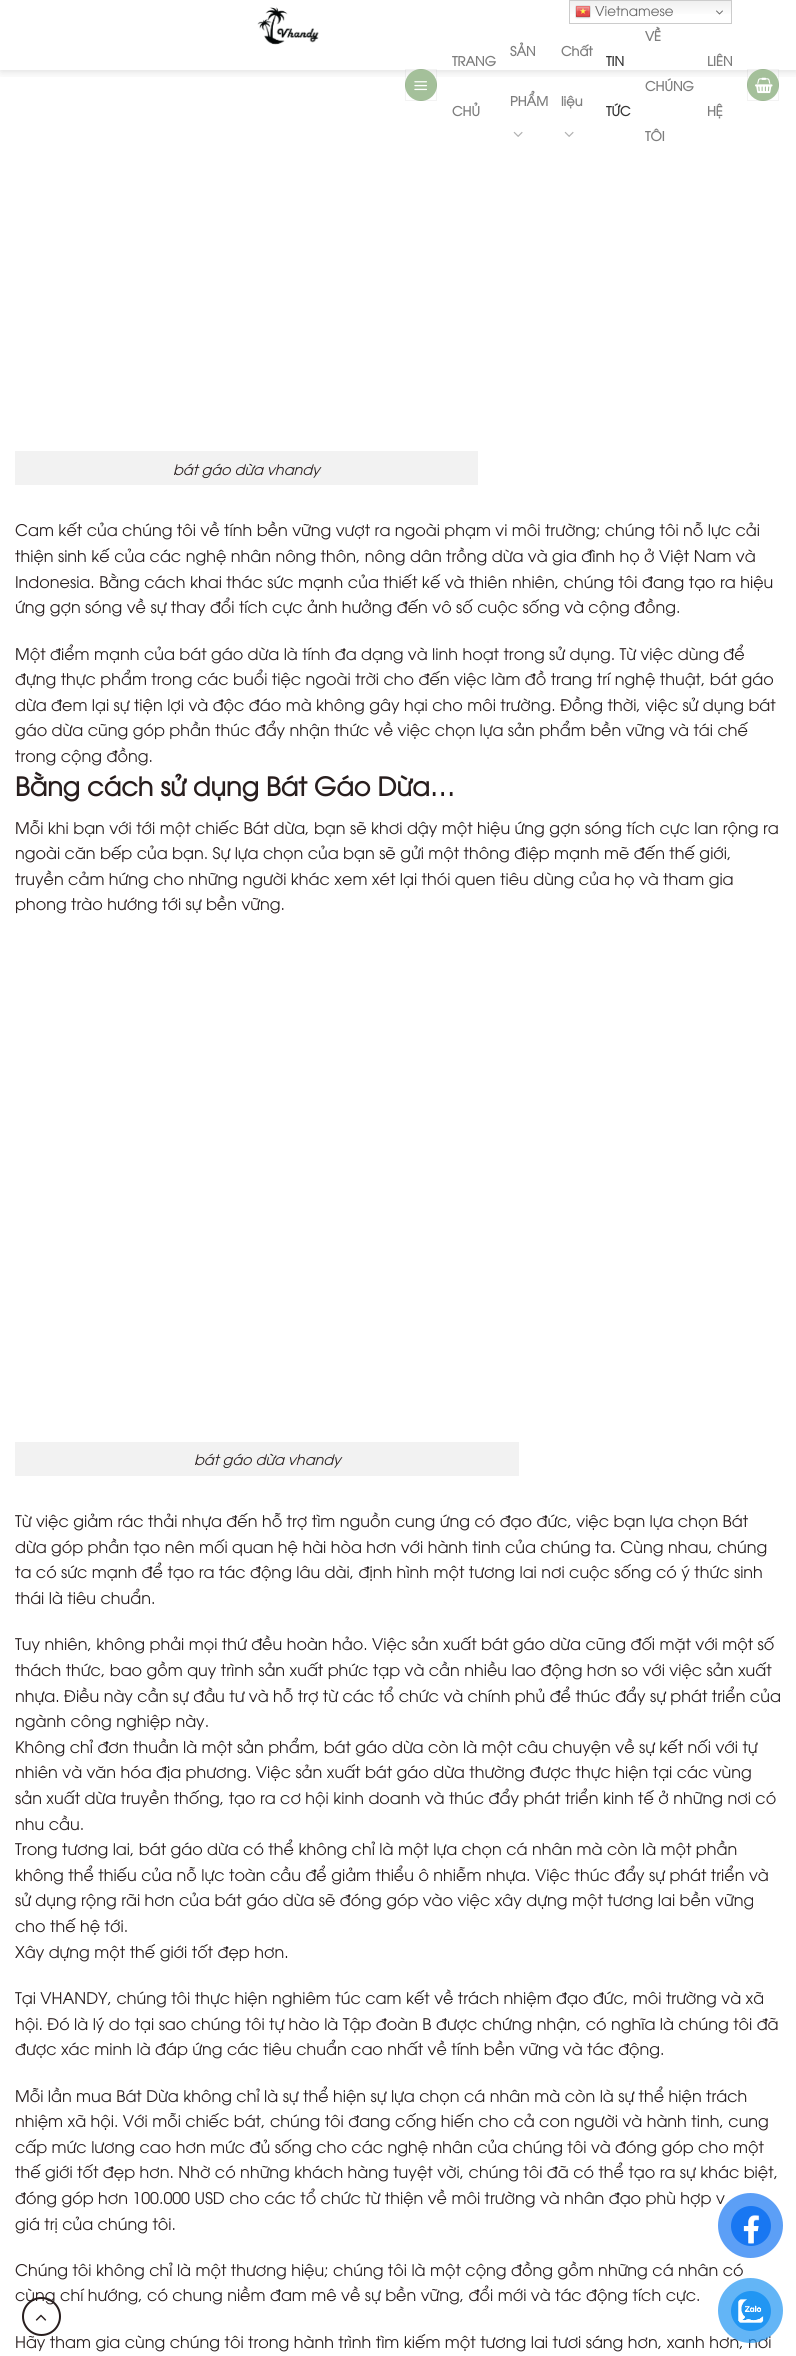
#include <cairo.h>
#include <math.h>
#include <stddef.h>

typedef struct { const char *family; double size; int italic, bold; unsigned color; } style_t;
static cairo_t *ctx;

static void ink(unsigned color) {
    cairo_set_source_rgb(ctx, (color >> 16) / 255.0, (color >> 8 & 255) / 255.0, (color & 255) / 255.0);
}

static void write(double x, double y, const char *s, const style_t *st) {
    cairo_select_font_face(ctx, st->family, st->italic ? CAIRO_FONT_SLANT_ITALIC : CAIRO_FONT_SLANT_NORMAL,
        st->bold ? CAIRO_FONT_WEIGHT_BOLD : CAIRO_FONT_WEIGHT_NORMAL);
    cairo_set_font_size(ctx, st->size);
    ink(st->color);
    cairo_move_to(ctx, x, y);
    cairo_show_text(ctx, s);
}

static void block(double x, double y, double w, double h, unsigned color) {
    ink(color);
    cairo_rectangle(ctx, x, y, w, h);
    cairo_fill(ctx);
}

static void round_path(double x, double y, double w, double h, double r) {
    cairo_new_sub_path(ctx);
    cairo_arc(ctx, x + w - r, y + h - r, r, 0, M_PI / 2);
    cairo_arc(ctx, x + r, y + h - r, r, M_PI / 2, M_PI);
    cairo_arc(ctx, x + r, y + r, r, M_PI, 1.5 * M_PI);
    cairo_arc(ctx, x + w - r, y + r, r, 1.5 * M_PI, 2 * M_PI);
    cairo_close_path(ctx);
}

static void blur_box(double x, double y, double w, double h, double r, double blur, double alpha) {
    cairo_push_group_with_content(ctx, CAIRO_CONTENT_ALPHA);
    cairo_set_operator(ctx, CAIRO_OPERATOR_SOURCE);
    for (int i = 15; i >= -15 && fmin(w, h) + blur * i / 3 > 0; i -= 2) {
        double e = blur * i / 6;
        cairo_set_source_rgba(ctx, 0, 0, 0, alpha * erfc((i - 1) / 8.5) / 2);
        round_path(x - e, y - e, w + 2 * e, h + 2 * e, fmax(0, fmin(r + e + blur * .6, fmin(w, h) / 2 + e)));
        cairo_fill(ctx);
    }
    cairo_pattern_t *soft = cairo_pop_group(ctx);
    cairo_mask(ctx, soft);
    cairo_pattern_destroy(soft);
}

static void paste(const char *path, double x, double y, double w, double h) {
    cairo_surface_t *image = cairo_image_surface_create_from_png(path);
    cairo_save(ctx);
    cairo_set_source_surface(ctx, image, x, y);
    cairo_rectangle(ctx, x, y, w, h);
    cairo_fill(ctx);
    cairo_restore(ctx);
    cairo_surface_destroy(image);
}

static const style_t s1 = {"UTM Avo", 13.5, 0, 0, 0x666666};
static const style_t s2 = {"UTM Avo", 13, 0, 1, 0x7d7d7d};
static const style_t s3 = {"UTM Avo", 13, 0, 1, 0x353535};
static const style_t s4 = {"UTM Avo", 14.4, 1, 0, 0x281e1e};
static const style_t s5 = {"UTM Avo", 16, 0, 0, 0x281e1e};
static const style_t s6 = {"UTM Avo", 25.6, 0, 1, 0x281e1e};

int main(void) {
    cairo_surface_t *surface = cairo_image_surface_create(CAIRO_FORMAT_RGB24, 796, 2356);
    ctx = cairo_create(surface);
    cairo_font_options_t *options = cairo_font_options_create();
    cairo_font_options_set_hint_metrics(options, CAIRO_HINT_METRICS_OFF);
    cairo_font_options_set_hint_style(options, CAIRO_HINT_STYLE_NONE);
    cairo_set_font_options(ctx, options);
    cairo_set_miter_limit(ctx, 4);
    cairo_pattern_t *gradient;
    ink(0xffffff);
    cairo_paint(ctx);
    cairo_save(ctx);
    cairo_rectangle(ctx, 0, 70, 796, 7);
    cairo_clip(ctx);
    ink(0x000000);
    blur_box(1, 1, 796, 70, 0, 5, 0.15);
    cairo_restore(ctx);
    gradient = cairo_pattern_create_linear(651, 0, 651, 24);
    cairo_pattern_add_color_stop_rgba(gradient, 0, 0.937, 0.937, 0.937, 1);
    cairo_pattern_add_color_stop_rgba(gradient, 0.7, 1, 1, 1, 1);
    cairo_set_source(ctx, gradient);
    cairo_pattern_destroy(gradient);
    cairo_rectangle(ctx, 570, 1, 161, 13);
    cairo_fill(ctx);
    cairo_rectangle(ctx, 569.5, 0.5, 162, 23);
    ink(0xcccccc);
    cairo_set_line_width(ctx, 1);
    cairo_stroke(ctx);
    paste("pic1.png", 575, 5, 16, 14);
    write(595, 16, "Vietnamese", &s1);
    paste("pic2.png", 716, 10, 7, 5);
    paste("pic3.png", 257, 7, 62, 38);
    ink(0xa4c09a);
    cairo_arc(ctx, 421, 85, 16, 0, 2 * M_PI);
    cairo_fill(ctx);
    cairo_rectangle(ctx, 405.5, 69.5, 31, 31);
    cairo_set_source_rgba(ctx, 0, 0, 0, 0.05);
    cairo_stroke(ctx);
    paste("pic4.png", 414, 81, 13, 10);
    write(452, 66, "TRANG", &s2);
    write(452, 116, "CHỦ", &s2);
    write(510, 56, "SẢN", &s2);
    write(510, 106, "PHẨM", &s2);
    paste("pic5.png", 513, 131, 10, 6);
    write(561, 56, "Chất", &s2);
    write(561, 106, "liệu", &s2);
    paste("pic5.png", 564, 131, 10, 6);
    write(606, 66, "TIN", &s3);
    write(606, 116, "TỨC", &s3);
    write(645, 41, "VỀ", &s2);
    write(645, 91, "CHÚNG", &s2);
    write(645, 141, "TÔI", &s2);
    write(707, 66, "LIÊN", &s2);
    write(707, 116, "HỆ", &s2);
    ink(0xa4c09a);
    cairo_new_path(ctx);
    cairo_arc(ctx, 763, 85, 16, 0, 2 * M_PI);
    cairo_fill(ctx);
    cairo_rectangle(ctx, 747.5, 69.5, 31, 31);
    cairo_set_source_rgba(ctx, 0, 0, 0, 0.05);
    cairo_stroke(ctx);
    paste("pic6.png", 755, 77, 18, 17);
    block(15, 451, 463, 34, 0xf2f2f2);
    write(173, 475, "bát gáo dừa vhandy", &s4);
    write(15, 536, "Cam kết của chúng tôi về tính bền vững vượt ra ngoài phạm vi môi trường; chúng tôi nỗ lực cải", &s5);
    write(15, 562, "thiện sinh kế của các nghệ nhân nông thôn, nông dân trồng dừa và gia đình họ ở Việt Nam và", &s5);
    write(15, 588, "Indonesia. Bằng cách khai thác sức mạnh của thiết kế và thiên nhiên, chúng tôi đang tạo ra hiệu", &s5);
    write(15, 613, "ứng gợn sóng về sự thay đổi tích cực ảnh hưởng đến vô số cuộc sống và cộng đồng.", &s5);
    write(15, 660, "Một điểm mạnh của bát gáo dừa là tính đa dạng và linh hoạt trong sử dụng. Từ việc dùng để", &s5);
    write(15, 685, "đựng thực phẩm trong các buổi tiệc ngoài trời cho đến việc làm đồ trang trí nghệ thuật, bát gáo", &s5);
    write(15, 711, "dừa đem lại sự tiện lợi và độc đáo mà không gây hại cho môi trường. Đồng thời, việc sử dụng bát", &s5);
    write(15, 736, "gáo dừa cũng góp phần thúc đẩy nhận thức về việc chọn lựa sản phẩm bền vững và tái chế", &s5);
    write(15, 762, "trong cộng đồng.", &s5);
    write(15, 796, "Bằng cách sử dụng Bát Gáo Dừa…", &s6);
    write(15, 834, "Mỗi khi bạn với tới một chiếc Bát dừa, bạn sẽ khơi dậy một hiệu ứng gợn sóng tích cực lan rộng ra", &s5);
    write(15, 859, "ngoài căn bếp của bạn. Sự lựa chọn của bạn sẽ gửi một thông điệp mạnh mẽ đến thế giới,", &s5);
    write(15, 885, "truyền cảm hứng cho những người khác xem xét lại thói quen tiêu dùng của họ và tham gia", &s5);
    write(15, 910, "phong trào hướng tới sự bền vững.", &s5);
    block(15, 1442, 504, 34, 0xf2f2f2);
    write(194, 1465, "bát gáo dừa vhandy", &s4);
    write(15, 1527, "Từ việc giảm rác thải nhựa đến hỗ trợ tìm nguồn cung ứng có đạo đức, việc bạn lựa chọn Bát", &s5);
    write(15, 1553, "dừa góp phần tạo nên mối quan hệ hài hòa hơn với hành tinh của chúng ta. Cùng nhau, chúng", &s5);
    write(15, 1578, "ta có sức mạnh để tạo ra tác động lâu dài, định hình một tương lai nơi cuộc sống có ý thức sinh", &s5);
    write(15, 1604, "thái là tiêu chuẩn.", &s5);
    write(15, 1650, "Tuy nhiên, không phải mọi thứ đều hoàn hảo. Việc sản xuất bát gáo dừa cũng đối mặt với một số", &s5);
    write(15, 1676, "thách thức, bao gồm quy trình sản xuất phức tạp và cần nhiều lao động hơn so với việc sản xuất", &s5);
    write(15, 1702, "nhựa. Điều này cần sự đầu tư và hỗ trợ từ các tổ chức và chính phủ để thúc đẩy sự phát triển của", &s5);
    write(15, 1727, "ngành công nghiệp này.", &s5);
    write(15, 1753, "Không chỉ đơn thuần là một sản phẩm, bát gáo dừa còn là một câu chuyện về sự kết nối với tự", &s5);
    write(15, 1778, "nhiên và văn hóa địa phương. Việc sản xuất bát gáo dừa thường được thực hiện tại các vùng", &s5);
    write(15, 1804, "sản xuất dừa truyền thống, tạo ra cơ hội kinh doanh và thúc đẩy phát triển kinh tế ở những nơi có", &s5);
    write(15, 1830, "nhu cầu.", &s5);
    write(15, 1855, "Trong tương lai, bát gáo dừa có thể không chỉ là một lựa chọn cá nhân mà còn là một phần", &s5);
    write(15, 1881, "không thể thiếu của nỗ lực toàn cầu để giảm thiểu ô nhiễm nhựa. Việc thúc đẩy sự phát triển và", &s5);
    write(15, 1906, "sử dụng rộng rãi hơn của bát gáo dừa sẽ đóng góp vào việc xây dựng một tương lai bền vững", &s5);
    write(15, 1932, "cho thế hệ tới.", &s5);
    write(15, 1958, "Xây dựng một thế giới tốt đẹp hơn.", &s5);
    write(15, 2004, "Tại VHANDY, chúng tôi thực hiện nghiêm túc cam kết về trách nhiệm đạo đức, môi trường và xã", &s5);
    write(15, 2030, "hội. Đó là lý do tại sao chúng tôi tự hào là Tập đoàn B được chứng nhận, có nghĩa là chúng tôi đã", &s5);
    write(15, 2055, "được xác minh là đáp ứng các tiêu chuẩn cao nhất về tính bền vững và tác động.", &s5);
    write(15, 2102, "Mỗi lần mua Bát Dừa không chỉ là sự thể hiện sự lựa chọn cá nhân mà còn là sự thể hiện trách", &s5);
    write(15, 2127, "nhiệm xã hội. Với mỗi chiếc bát, chúng tôi đang cống hiến cho cả con người và hành tinh, cung", &s5);
    write(15, 2153, "cấp mức lương cao hơn mức đủ sống cho các nghệ nhân của chúng tôi và đóng góp cho một", &s5);
    write(15, 2178, "thế giới tốt đẹp hơn. Nhờ có những khách hàng tuyệt vời, chúng tôi đã có thể tạo ra sự khác biệt,", &s5);
    write(15, 2204, "đóng góp hơn 100.000 USD cho các tổ chức từ thiện về môi trường và nhân đạo phù hợp v", &s5);
    write(15, 2230, "giá trị của chúng tôi.", &s5);
    write(15, 2276, "Chúng tôi không chỉ là một thương hiệu; chúng tôi là một cộng đồng gồm những cá nhân có", &s5);
    write(15, 2301, "cùng chí hướng, có chung niềm đam mê về sự bền vững, đổi mới và tác động tích cực.", &s5);
    write(15, 2348, "Hãy tham gia cùng chúng tôi trong hành trình tìm kiếm một tương lai tươi sáng hơn, xanh hơn, nơi", &s5);
    cairo_new_path(ctx);
    cairo_arc(ctx, 41.5, 2316.5, 18.5, 0, 2 * M_PI);
    cairo_set_line_width(ctx, 2);
    cairo_stroke(ctx);
    paste("pic7.png", 35, 2314, 12, 7);
    cairo_set_source_rgba(ctx, 0.094, 0.467, 0.949, 0.7);
    cairo_arc(ctx, 750.5, 2225.5, 32.5, 0, 2 * M_PI);
    cairo_fill(ctx);
    ink(0x1877f2);
    cairo_arc(ctx, 751, 2226, 20, 0, 2 * M_PI);
    cairo_fill(ctx);
    paste("pic8.png", 743, 2215, 17, 29);
    cairo_set_source_rgba(ctx, 0.129, 0.588, 0.953, 0.7);
    cairo_arc(ctx, 750.5, 2310.5, 32.5, 0, 2 * M_PI);
    cairo_fill(ctx);
    ink(0x2196f3);
    cairo_arc(ctx, 751, 2311, 20, 0, 2 * M_PI);
    cairo_fill(ctx);
    paste("pic9.png", 738, 2299, 26, 24);
    cairo_surface_write_to_png(surface, "screenshot.png");
    cairo_font_options_destroy(options);
    cairo_destroy(ctx);
    cairo_surface_destroy(surface);
    return 0;
}
